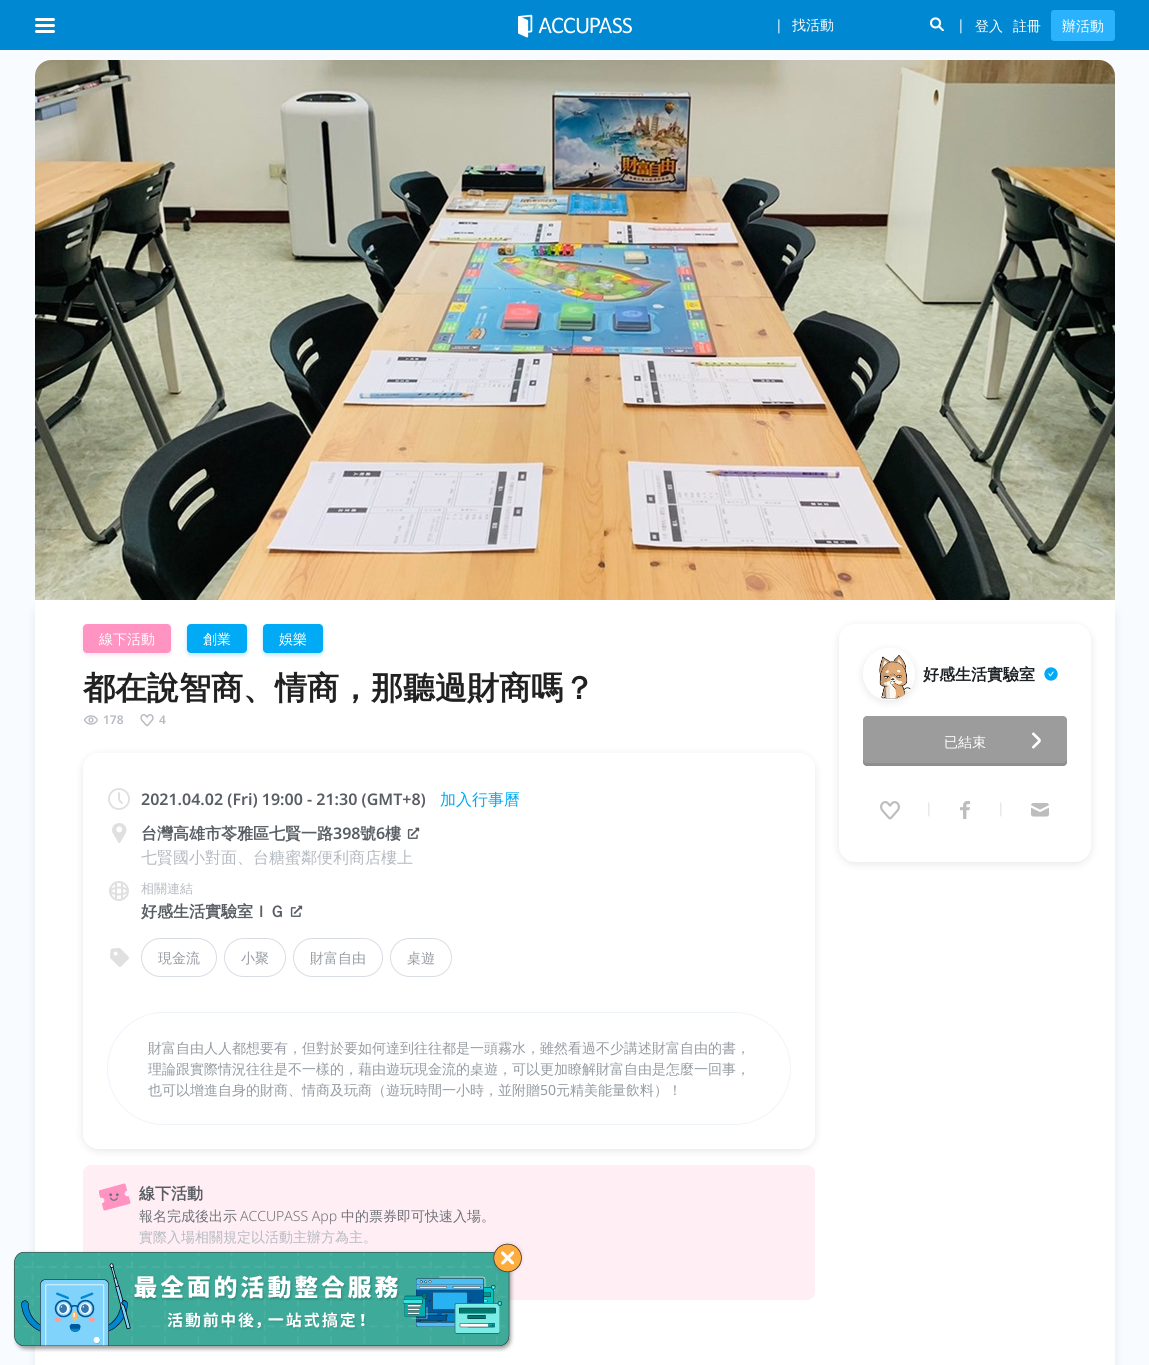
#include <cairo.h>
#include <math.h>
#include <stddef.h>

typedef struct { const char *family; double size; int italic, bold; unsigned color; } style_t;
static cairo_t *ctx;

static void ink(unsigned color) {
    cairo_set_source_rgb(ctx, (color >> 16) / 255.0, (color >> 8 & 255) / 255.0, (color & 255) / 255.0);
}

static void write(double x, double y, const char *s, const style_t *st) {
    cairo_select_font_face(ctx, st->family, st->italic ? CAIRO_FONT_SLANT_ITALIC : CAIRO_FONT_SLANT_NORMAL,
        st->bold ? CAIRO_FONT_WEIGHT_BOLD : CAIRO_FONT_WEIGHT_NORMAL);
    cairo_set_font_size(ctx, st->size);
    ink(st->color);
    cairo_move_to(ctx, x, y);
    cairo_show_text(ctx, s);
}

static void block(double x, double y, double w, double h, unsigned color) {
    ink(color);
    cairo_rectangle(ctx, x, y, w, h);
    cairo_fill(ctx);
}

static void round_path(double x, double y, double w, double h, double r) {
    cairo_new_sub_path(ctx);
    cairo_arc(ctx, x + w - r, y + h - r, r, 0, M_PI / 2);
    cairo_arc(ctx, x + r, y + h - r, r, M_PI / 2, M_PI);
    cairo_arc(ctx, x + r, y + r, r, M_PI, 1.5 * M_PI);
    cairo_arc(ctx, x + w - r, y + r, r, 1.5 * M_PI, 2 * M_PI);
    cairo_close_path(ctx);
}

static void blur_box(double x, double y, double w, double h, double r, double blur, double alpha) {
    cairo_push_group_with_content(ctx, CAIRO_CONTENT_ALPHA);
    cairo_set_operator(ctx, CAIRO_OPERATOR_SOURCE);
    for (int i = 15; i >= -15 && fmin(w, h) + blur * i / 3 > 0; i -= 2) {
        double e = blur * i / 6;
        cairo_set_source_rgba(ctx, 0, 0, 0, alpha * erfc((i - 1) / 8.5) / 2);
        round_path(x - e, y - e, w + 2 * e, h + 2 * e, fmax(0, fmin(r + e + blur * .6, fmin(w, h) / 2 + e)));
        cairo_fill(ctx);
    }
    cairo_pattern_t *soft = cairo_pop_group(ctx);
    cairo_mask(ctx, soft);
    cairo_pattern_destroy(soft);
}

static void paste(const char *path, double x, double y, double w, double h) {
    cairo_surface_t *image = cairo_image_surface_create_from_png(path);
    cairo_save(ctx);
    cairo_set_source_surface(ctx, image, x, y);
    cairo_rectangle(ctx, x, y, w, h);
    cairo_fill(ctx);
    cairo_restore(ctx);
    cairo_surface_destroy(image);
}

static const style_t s1 = {"Noto Sans", 14, 0, 0, 0xffffff};
static const style_t s2 = {"WenQuanYi Zen Hei Medium", 14, 0, 0, 0xffffff};
static const style_t s3 = {"WenQuanYi Zen Hei", 32, 0, 1, 0x212121};
static const style_t s4 = {"Noto Sans SemiBold", 12, 0, 0, 0xb5bac1};
static const style_t s5 = {"Noto Sans SemiBold", 16, 0, 0, 0x595e64};
static const style_t s6 = {"WenQuanYi Zen Hei Medium", 16, 0, 0, 0x00aaf5};
static const style_t s7 = {"WenQuanYi Zen Hei", 16, 0, 1, 0x595e64};
static const style_t s8 = {"WenQuanYi Zen Hei Medium", 16, 0, 0, 0xb5bac1};
static const style_t s9 = {"WenQuanYi Zen Hei Medium", 13, 0, 0, 0xb5bac1};
static const style_t s10 = {"WenQuanYi Zen Hei Medium", 14, 0, 0, 0x959ba1};
static const style_t s11 = {"Noto Sans", 14, 0, 0, 0x959ba1};
static const style_t s12 = {"WenQuanYi Zen Hei Medium", 14, 0, 0, 0x6d7278};
static const style_t s13 = {"Noto Sans Light", 14, 0, 0, 0x6d7278};
static const style_t s14 = {"WenQuanYi Zen Hei Medium", 14, 0, 0, 0xb5bac1};
static const style_t s15 = {"WenQuanYi Zen Hei", 16, 0, 1, 0x1a1f23};
static const style_t s16 = {"Noto Sans", 14, 0, 0, 0xdddddd};

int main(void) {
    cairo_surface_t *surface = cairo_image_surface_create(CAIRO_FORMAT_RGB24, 1149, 1365);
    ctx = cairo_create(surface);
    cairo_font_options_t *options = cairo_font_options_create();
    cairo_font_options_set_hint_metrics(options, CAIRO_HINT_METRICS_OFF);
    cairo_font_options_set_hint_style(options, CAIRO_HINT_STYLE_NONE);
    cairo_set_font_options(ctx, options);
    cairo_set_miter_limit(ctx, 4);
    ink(0xf8fbff);
    cairo_paint(ctx);
    block(0, 0, 1149, 50, 0x0088d2);
    ink(0xffffff);
    round_path(35, 18, 20, 3, 1.5);
    cairo_fill(ctx);
    round_path(35, 24, 20, 3, 1.5);
    cairo_fill(ctx);
    round_path(35, 30, 20, 3, 1.5);
    cairo_fill(ctx);
    paste("pic1.png", 518, 14, 114, 24);
    write(775, 30, "|", &s1);
    write(792, 30, "找活動", &s2);
    paste("pic2.png", 930, 17, 14, 14);
    write(957, 30, "|", &s1);
    write(975, 31, "登入", &s2);
    write(1013, 31, "註冊", &s2);
    ink(0x2ab3fc);
    round_path(1051, 10, 64, 31, 3);
    cairo_fill(ctx);
    write(1062, 31, "辦活動", &s2);
    ink(0x6b6b6b);
    blur_box(35, 602, 1080, 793, 16, 4.5, 0.14);
    ink(0xffffff);
    cairo_new_path(ctx);
    cairo_move_to(ctx, 51, 60);
    cairo_line_to(ctx, 1099, 60);
    cairo_curve_to(ctx, 1108, 60, 1115, 67, 1115, 76);
    cairo_line_to(ctx, 1115, 600);
    cairo_line_to(ctx, 35, 600);
    cairo_line_to(ctx, 35, 76);
    cairo_curve_to(ctx, 35, 67, 42, 60, 51, 60);
    cairo_close_path(ctx);
    cairo_fill(ctx);
    paste("pic3.png", 35, 60, 1080, 540);
    block(35, 600, 1080, 765, 0xffffff);
    ink(0xff93c2);
    blur_box(83, 626, 88, 29, 4, 2, 0.3);
    ink(0xff93c2);
    round_path(83, 624, 88, 29, 4);
    cairo_fill(ctx);
    write(99, 644, "線下活動", &s2);
    ink(0x00aaf5);
    blur_box(187, 626, 60, 29, 4, 2, 0.3);
    ink(0x00aaf5);
    round_path(187, 624, 60, 29, 4);
    cairo_fill(ctx);
    write(203, 644, "創業", &s2);
    ink(0x00aaf5);
    blur_box(263, 626, 60, 29, 4, 2, 0.3);
    ink(0x00aaf5);
    round_path(263, 624, 60, 29, 4);
    cairo_fill(ctx);
    write(279, 644, "娛樂", &s2);
    write(83, 699, "都在說智商、情商，那聽過財商嗎？", &s3);
    paste("pic4.png", 84, 715, 14, 10);
    write(103, 724, "178", &s4);
    paste("pic5.png", 140, 714, 14, 13);
    write(159, 724, "4", &s4);
    cairo_save(ctx);
    cairo_set_fill_rule(ctx, CAIRO_FILL_RULE_EVEN_ODD);
    cairo_new_path(ctx);
    cairo_move_to(ctx, 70, 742);
    cairo_line_to(ctx, 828, 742);
    cairo_line_to(ctx, 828, 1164);
    cairo_line_to(ctx, 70, 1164);
    cairo_close_path(ctx);
    cairo_move_to(ctx, 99, 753);
    cairo_line_to(ctx, 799, 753);
    cairo_curve_to(ctx, 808, 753, 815, 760, 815, 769);
    cairo_line_to(ctx, 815, 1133);
    cairo_curve_to(ctx, 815, 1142, 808, 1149, 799, 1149);
    cairo_line_to(ctx, 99, 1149);
    cairo_curve_to(ctx, 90, 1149, 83, 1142, 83, 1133);
    cairo_line_to(ctx, 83, 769);
    cairo_curve_to(ctx, 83, 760, 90, 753, 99, 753);
    cairo_close_path(ctx);
    cairo_clip(ctx);
    ink(0x000000);
    blur_box(83, 755, 732, 396, 16, 4, 0.1);
    cairo_restore(ctx);
    paste("pic6.png", 108, 788, 22, 22);
    write(141, 805, "2021.04.02 (Fri) 19:00 - 21:30 (GMT+8)", &s5);
    write(440, 805, "加入行事曆", &s6);
    paste("pic7.png", 112, 823, 15, 20);
    write(141, 839, "台灣高雄市苓雅區七賢一路", &s7);
    write(333, 839, "398", &s5);
    write(360, 839, "號", &s7);
    write(376, 839, "6", &s5);
    write(385, 839, "樓", &s7);
    paste("pic8.png", 407, 827, 13, 12);
    write(141, 863, "七賢國小對面、台糖蜜鄰便利商店樓上", &s8);
    paste("pic9.png", 109, 881, 20, 20);
    write(141, 893, "相關連結", &s9);
    write(141, 917, "好感生活實驗室ＩＧ", &s7);
    paste("pic8.png", 290, 905, 13, 12);
    paste("pic10.png", 110, 948, 19, 19);
    round_path(141.5, 938.5, 75, 38, 19);
    ink(0xd8dde4);
    cairo_set_line_width(ctx, 1);
    cairo_stroke(ctx);
    write(158, 963, "現金流", &s10);
    round_path(224.5, 938.5, 61, 38, 19);
    ink(0xd8dde4);
    cairo_stroke(ctx);
    write(241, 963, "小聚", &s10);
    round_path(293.5, 938.5, 89, 38, 19);
    ink(0xd8dde4);
    cairo_stroke(ctx);
    write(310, 963, "財富自由", &s10);
    round_path(390.5, 938.5, 61, 38, 19);
    ink(0xd8dde4);
    cairo_stroke(ctx);
    write(407, 963, "桌遊", &s10);
    round_path(107.5, 1012.5, 683, 112, 56);
    ink(0xeff4fb);
    cairo_stroke(ctx);
    write(148, 1053, "財富自由人人都想要有，但對於要如何達到往往都是一頭霧水，雖然看過不少講述財富自由的書，", &s10);
    write(148, 1074, "理論跟實際情況往往是不一樣的，藉由遊玩現金流的桌遊，可以更加瞭解財富自由是怎麼一回事，", &s10);
    write(148, 1095, "也可以增進自身的財商、情商及玩商（遊玩時間一小時，並附贈", &s10);
    write(540, 1095, "50", &s11);
    write(556, 1095, "元精美能量飲料）！", &s10);
    ink(0xffeef3);
    round_path(83, 1165, 732, 135, 8);
    cairo_fill(ctx);
    paste("pic11.png", 99, 1183, 32, 28);
    write(139, 1199, "線下活動", &s7);
    write(139, 1221, "報名完成後出示", &s12);
    write(240, 1221, "ACCUPASS App", &s13);
    write(341, 1221, "中的票券即可快速入場。", &s12);
    write(139, 1242, "實際入場相關規定以活動主辦方為主。", &s14);
    ink(0x000000);
    blur_box(839, 626, 252, 238, 16, 4, 0.1);
    ink(0xffffff);
    round_path(839, 624, 252, 238, 16);
    cairo_fill(ctx);
    cairo_save(ctx);
    cairo_set_fill_rule(ctx, CAIRO_FILL_RULE_EVEN_ODD);
    cairo_new_path(ctx);
    cairo_move_to(ctx, 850, 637);
    cairo_line_to(ctx, 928, 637);
    cairo_line_to(ctx, 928, 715);
    cairo_line_to(ctx, 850, 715);
    cairo_close_path(ctx);
    cairo_move_to(ctx, 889, 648);
    cairo_curve_to(ctx, 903.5, 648, 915, 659.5, 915, 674);
    cairo_curve_to(ctx, 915, 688.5, 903.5, 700, 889, 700);
    cairo_curve_to(ctx, 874.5, 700, 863, 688.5, 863, 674);
    cairo_curve_to(ctx, 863, 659.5, 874.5, 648, 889, 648);
    cairo_close_path(ctx);
    cairo_clip(ctx);
    ink(0x000000);
    blur_box(863, 650, 52, 52, 26, 4, 0.1);
    cairo_restore(ctx);
    paste("pic12.png", 870, 655, 41, 44);
    write(923, 680, "好感生活實驗室", &s15);
    paste("pic13.png", 1044, 667, 14, 14);
    ink(0x9c9c9c);
    round_path(863, 716, 204, 50, 4);
    cairo_fill(ctx);
    ink(0x8e8e8e);
    cairo_new_path(ctx);
    cairo_move_to(ctx, 863, 759);
    cairo_line_to(ctx, 863, 762);
    cairo_curve_to(ctx, 863, 764, 865, 766, 867, 766);
    cairo_line_to(ctx, 1063, 766);
    cairo_curve_to(ctx, 1065, 766, 1067, 764, 1067, 762);
    cairo_line_to(ctx, 1067, 759);
    cairo_curve_to(ctx, 1067, 761, 1065, 763, 1063, 763);
    cairo_line_to(ctx, 867, 763);
    cairo_curve_to(ctx, 865, 763, 863, 761, 863, 759);
    cairo_close_path(ctx);
    cairo_fill(ctx);
    write(944, 747, "已結束", &s2);
    paste("pic14.png", 1032, 732, 9, 17);
    paste("pic15.png", 880, 801, 20, 19);
    write(925, 813, "|", &s16);
    paste("pic16.png", 960, 801, 10, 18);
    write(997, 813, "|", &s16);
    paste("pic17.png", 1031, 803, 18, 14);
    paste("pic18.png", 13, 1241, 511, 111);
    cairo_surface_write_to_png(surface, "screenshot.png");
    cairo_font_options_destroy(options);
    cairo_destroy(ctx);
    cairo_surface_destroy(surface);
    return 0;
}
